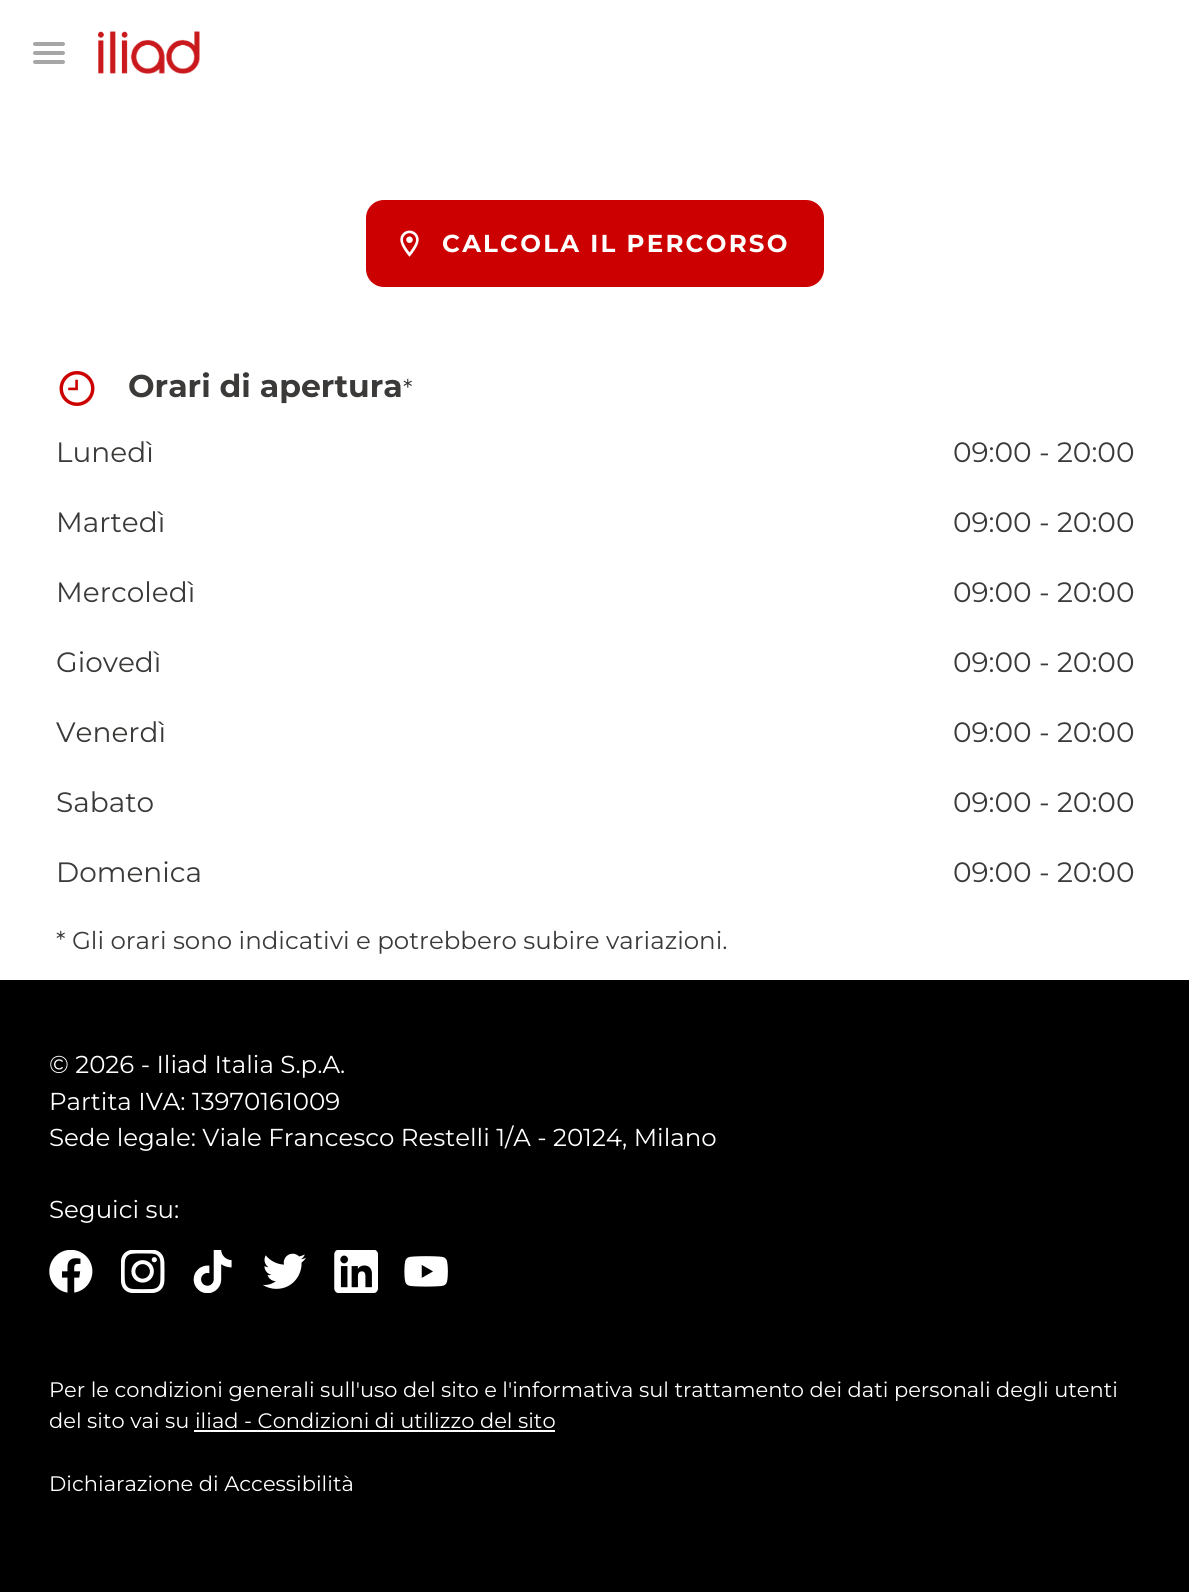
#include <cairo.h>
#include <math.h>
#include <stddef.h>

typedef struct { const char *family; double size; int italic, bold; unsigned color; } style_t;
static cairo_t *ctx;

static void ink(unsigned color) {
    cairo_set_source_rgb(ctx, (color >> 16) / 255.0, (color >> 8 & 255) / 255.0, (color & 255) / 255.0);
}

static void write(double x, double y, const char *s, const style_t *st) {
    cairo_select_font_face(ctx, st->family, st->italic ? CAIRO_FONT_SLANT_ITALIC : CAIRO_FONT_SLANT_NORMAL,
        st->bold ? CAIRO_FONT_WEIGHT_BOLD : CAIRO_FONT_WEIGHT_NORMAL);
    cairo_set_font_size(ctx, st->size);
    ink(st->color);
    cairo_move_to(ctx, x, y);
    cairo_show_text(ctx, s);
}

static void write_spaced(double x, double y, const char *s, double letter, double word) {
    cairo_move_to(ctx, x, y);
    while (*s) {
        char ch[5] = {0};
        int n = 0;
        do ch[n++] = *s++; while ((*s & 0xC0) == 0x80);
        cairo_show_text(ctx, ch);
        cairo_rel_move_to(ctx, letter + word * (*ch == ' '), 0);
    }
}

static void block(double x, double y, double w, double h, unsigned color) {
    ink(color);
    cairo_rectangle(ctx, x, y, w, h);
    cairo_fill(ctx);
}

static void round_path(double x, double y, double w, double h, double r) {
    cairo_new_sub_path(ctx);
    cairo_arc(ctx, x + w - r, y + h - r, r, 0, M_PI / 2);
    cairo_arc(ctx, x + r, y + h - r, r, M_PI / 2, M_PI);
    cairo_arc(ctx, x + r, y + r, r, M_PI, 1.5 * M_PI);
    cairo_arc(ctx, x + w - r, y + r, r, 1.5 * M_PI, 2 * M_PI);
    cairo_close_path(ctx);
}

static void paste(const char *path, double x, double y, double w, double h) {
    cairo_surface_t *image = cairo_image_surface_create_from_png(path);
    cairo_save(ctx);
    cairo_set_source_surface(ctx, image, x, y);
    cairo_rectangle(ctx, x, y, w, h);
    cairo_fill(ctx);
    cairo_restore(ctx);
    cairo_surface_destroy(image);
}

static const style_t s1 = {"Montserrat Thin", 31.5, 0, 0, 0x3c3a39};
static const style_t s2 = {"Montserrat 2 Thin", 24.5, 0, 0, 0x3c3a39};
static const style_t s3 = {"Montserrat 2 Thin", 28, 0, 0, 0x3c3a39};
static const style_t s4 = {"Montserrat 2 Thin", 24.5, 0, 0, 0xffffff};
static const style_t s5 = {"Montserrat 2 Thin", 21, 0, 0, 0xffffff};

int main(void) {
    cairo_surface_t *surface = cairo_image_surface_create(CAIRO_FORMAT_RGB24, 1189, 1592);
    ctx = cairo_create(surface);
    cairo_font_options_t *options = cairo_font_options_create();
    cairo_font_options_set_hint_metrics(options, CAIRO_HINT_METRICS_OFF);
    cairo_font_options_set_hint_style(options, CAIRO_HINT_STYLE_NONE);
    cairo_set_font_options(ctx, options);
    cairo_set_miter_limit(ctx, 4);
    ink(0xffffff);
    cairo_paint(ctx);
    ink(0xa6a6a6);
    round_path(33, 42, 32, 4, 2);
    cairo_fill(ctx);
    round_path(33, 51, 32, 4, 2);
    cairo_fill(ctx);
    round_path(33, 60, 32, 4, 2);
    cairo_fill(ctx);
    paste("pic1.png", 98, 31, 102, 43);
    ink(0xcc0000);
    round_path(366, 200, 458, 87, 18);
    cairo_fill(ctx);
    paste("pic2.png", 400, 230, 19, 27);
    cairo_select_font_face(ctx, "Montserrat Thin", CAIRO_FONT_SLANT_NORMAL, CAIRO_FONT_WEIGHT_NORMAL);
    cairo_set_font_size(ctx, 24.5);
    ink(0xffffff);
    write_spaced(442, 252, "CALCOLA IL PERCORSO", 2.2, 0);
    paste("pic3.png", 59, 371, 36, 35);
    write(128, 397, "Orari di apertura", &s1);
    write(403, 397, "*", &s2);
    write(56, 462, "Lunedì", &s3);
    write(953, 462, "09:00 - 20:00", &s3);
    write(56, 532, "Martedì", &s3);
    write(953, 532, "09:00 - 20:00", &s3);
    write(56, 602, "Mercoledì", &s3);
    write(953, 602, "09:00 - 20:00", &s3);
    write(56, 672, "Giovedì", &s3);
    write(953, 672, "09:00 - 20:00", &s3);
    write(56, 742, "Venerdì", &s3);
    write(953, 742, "09:00 - 20:00", &s3);
    write(56, 812, "Sabato", &s3);
    write(953, 812, "09:00 - 20:00", &s3);
    write(56, 882, "Domenica", &s3);
    write(953, 882, "09:00 - 20:00", &s3);
    write(56, 949, "* Gli orari sono indicativi e potrebbero subire variazioni.", &s2);
    block(0, 980, 1189, 612, 0x000000);
    write(49, 1073, "© 2026 - Iliad Italia S.p.A.", &s4);
    write(49, 1110, "Partita IVA: 13970161009", &s4);
    write(49, 1146, "Sede legale: Viale Francesco Restelli 1/A - 20124, Milano", &s4);
    write(49, 1218, "Seguici su:", &s4);
    paste("pic4.png", 49, 1250, 44, 43);
    paste("pic5.png", 121, 1250, 44, 43);
    paste("pic6.png", 193, 1250, 39, 43);
    paste("pic7.png", 263, 1253, 43, 36);
    paste("pic8.png", 334, 1250, 44, 43);
    paste("pic9.png", 404, 1256, 44, 31);
    write(49, 1397, "Per le condizioni generali sull'uso del sito e l'informativa sul trattamento dei dati personali degli utenti", &s5);
    write(49, 1428, "del sito vai su iliad - Condizioni di utilizzo del sito", &s5);
    block(194, 1430, 361, 2, 0xffffff);
    write(49, 1491, "Dichiarazione di Accessibilità", &s5);
    cairo_surface_write_to_png(surface, "screenshot.png");
    cairo_font_options_destroy(options);
    cairo_destroy(ctx);
    cairo_surface_destroy(surface);
    return 0;
}
